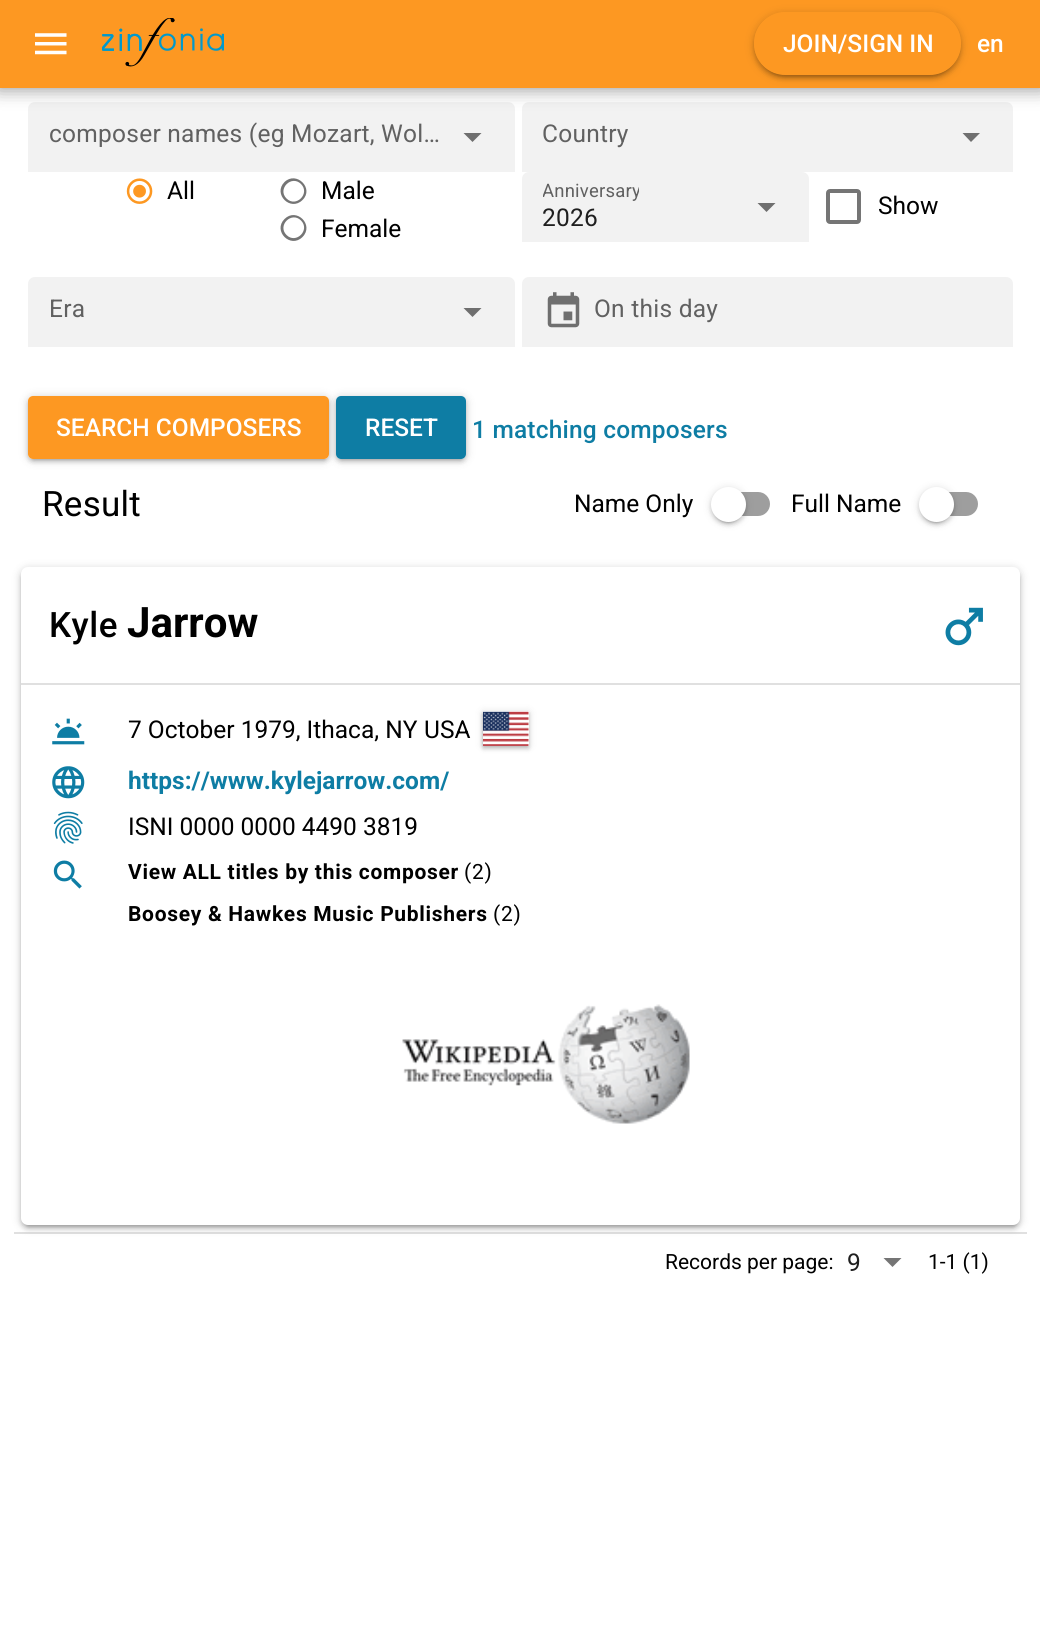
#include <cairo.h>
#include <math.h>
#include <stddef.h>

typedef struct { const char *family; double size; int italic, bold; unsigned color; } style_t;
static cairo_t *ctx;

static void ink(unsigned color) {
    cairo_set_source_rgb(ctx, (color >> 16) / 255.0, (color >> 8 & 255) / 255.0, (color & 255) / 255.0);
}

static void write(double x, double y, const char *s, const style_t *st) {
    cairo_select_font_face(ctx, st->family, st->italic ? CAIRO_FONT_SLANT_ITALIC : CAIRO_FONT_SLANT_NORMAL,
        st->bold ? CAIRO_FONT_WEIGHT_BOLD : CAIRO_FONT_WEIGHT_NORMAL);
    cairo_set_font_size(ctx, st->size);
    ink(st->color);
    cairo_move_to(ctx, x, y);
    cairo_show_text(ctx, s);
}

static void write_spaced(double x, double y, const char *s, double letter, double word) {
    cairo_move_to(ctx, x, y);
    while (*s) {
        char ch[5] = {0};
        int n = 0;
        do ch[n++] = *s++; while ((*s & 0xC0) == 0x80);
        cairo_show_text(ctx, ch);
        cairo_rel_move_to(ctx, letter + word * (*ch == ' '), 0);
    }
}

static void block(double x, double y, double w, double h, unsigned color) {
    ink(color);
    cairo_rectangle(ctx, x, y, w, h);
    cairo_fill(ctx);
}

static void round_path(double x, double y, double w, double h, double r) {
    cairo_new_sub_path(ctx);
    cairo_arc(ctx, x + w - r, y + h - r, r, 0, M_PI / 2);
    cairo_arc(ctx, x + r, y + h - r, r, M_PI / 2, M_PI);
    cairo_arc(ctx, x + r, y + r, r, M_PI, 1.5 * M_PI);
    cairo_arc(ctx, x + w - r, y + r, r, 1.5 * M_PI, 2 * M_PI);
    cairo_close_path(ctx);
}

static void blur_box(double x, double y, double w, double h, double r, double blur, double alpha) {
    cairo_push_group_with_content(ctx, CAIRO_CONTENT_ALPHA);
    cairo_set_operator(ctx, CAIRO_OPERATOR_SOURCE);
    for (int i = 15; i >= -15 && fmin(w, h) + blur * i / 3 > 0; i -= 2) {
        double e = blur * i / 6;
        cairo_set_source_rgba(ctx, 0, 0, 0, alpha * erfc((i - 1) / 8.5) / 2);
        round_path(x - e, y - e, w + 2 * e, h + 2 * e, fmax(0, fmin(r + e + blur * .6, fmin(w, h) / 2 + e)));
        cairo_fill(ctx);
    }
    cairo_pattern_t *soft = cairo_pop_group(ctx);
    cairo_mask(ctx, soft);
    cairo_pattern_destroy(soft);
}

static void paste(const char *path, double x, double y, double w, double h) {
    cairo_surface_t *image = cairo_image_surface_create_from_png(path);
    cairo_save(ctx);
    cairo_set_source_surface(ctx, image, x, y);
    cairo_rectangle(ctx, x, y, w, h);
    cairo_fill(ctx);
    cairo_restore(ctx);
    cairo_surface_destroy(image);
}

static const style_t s1 = {"Roboto Medium", 24.5, 0, 0, 0xffffff};
static const style_t s2 = {"Roboto", 24.5, 0, 0, 0x000000};
static const style_t s3 = {"Roboto", 42, 0, 1, 0x000000};
static const style_t s4 = {"Roboto", 24.5, 0, 1, 0x0e7da4};
static const style_t s5 = {"Roboto", 21, 0, 0, 0x000000};

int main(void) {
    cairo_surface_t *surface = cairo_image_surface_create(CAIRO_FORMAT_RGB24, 1040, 1649);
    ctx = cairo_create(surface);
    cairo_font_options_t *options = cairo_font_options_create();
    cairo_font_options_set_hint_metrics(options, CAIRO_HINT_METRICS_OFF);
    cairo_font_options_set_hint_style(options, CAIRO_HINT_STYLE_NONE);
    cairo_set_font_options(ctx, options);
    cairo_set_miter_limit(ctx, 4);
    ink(0xffffff);
    cairo_paint(ctx);
    block(0, 0, 1040, 88, 0xfd9822);
    paste("pic1.png", 35, 33, 32, 22);
    paste("pic2.png", 102, 18, 122, 49);
    ink(0xf2f2f2);
    cairo_new_path(ctx);
    cairo_move_to(ctx, 35, 102);
    cairo_line_to(ctx, 508, 102);
    cairo_curve_to(ctx, 512, 102, 515, 105, 515, 109);
    cairo_line_to(ctx, 515, 172);
    cairo_line_to(ctx, 28, 172);
    cairo_line_to(ctx, 28, 109);
    cairo_curve_to(ctx, 28, 105, 31, 102, 35, 102);
    cairo_close_path(ctx);
    cairo_fill(ctx);
    cairo_new_path(ctx);
    cairo_move_to(ctx, 529, 102);
    cairo_line_to(ctx, 1006, 102);
    cairo_curve_to(ctx, 1010, 102, 1013, 105, 1013, 109);
    cairo_line_to(ctx, 1013, 172);
    cairo_line_to(ctx, 522, 172);
    cairo_line_to(ctx, 522, 109);
    cairo_curve_to(ctx, 522, 105, 525, 102, 529, 102);
    cairo_close_path(ctx);
    cairo_fill(ctx);
    cairo_save(ctx);
    cairo_set_fill_rule(ctx, CAIRO_FILL_RULE_EVEN_ODD);
    cairo_new_path(ctx);
    cairo_move_to(ctx, 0, 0);
    cairo_line_to(ctx, 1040, 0);
    cairo_line_to(ctx, 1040, 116);
    cairo_line_to(ctx, 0, 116);
    cairo_close_path(ctx);
    cairo_move_to(ctx, 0, 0);
    cairo_line_to(ctx, 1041, 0);
    cairo_line_to(ctx, 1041, 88);
    cairo_line_to(ctx, 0, 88);
    cairo_close_path(ctx);
    cairo_clip(ctx);
    ink(0x000000);
    blur_box(0, 0, 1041, 88, 0, 9, 0.24);
    cairo_restore(ctx);
    cairo_save(ctx);
    cairo_set_fill_rule(ctx, CAIRO_FILL_RULE_EVEN_ODD);
    cairo_new_path(ctx);
    cairo_move_to(ctx, 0, 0);
    cairo_line_to(ctx, 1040, 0);
    cairo_line_to(ctx, 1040, 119);
    cairo_line_to(ctx, 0, 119);
    cairo_close_path(ctx);
    cairo_move_to(ctx, 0, 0);
    cairo_line_to(ctx, 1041, 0);
    cairo_line_to(ctx, 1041, 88);
    cairo_line_to(ctx, 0, 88);
    cairo_close_path(ctx);
    cairo_clip(ctx);
    ink(0x000000);
    blur_box(-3, -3, 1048, 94, 0, 9, 0.2);
    cairo_restore(ctx);
    cairo_save(ctx);
    cairo_set_fill_rule(ctx, CAIRO_FILL_RULE_EVEN_ODD);
    cairo_new_path(ctx);
    cairo_move_to(ctx, 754, 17);
    cairo_line_to(ctx, 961, 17);
    cairo_line_to(ctx, 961, 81);
    cairo_line_to(ctx, 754, 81);
    cairo_close_path(ctx);
    cairo_move_to(ctx, 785.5, 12);
    cairo_line_to(ctx, 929.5, 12);
    cairo_curve_to(ctx, 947, 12, 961, 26, 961, 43.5);
    cairo_curve_to(ctx, 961, 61, 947, 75, 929.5, 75);
    cairo_line_to(ctx, 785.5, 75);
    cairo_curve_to(ctx, 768, 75, 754, 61, 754, 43.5);
    cairo_curve_to(ctx, 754, 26, 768, 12, 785.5, 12);
    cairo_close_path(ctx);
    cairo_clip(ctx);
    ink(0x000000);
    blur_box(758, 21, 199, 56, 28, 1, 0.12);
    cairo_restore(ctx);
    cairo_save(ctx);
    cairo_set_fill_rule(ctx, CAIRO_FILL_RULE_EVEN_ODD);
    cairo_new_path(ctx);
    cairo_move_to(ctx, 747, 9);
    cairo_line_to(ctx, 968, 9);
    cairo_line_to(ctx, 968, 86);
    cairo_line_to(ctx, 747, 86);
    cairo_close_path(ctx);
    cairo_move_to(ctx, 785.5, 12);
    cairo_line_to(ctx, 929.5, 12);
    cairo_curve_to(ctx, 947, 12, 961, 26, 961, 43.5);
    cairo_curve_to(ctx, 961, 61, 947, 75, 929.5, 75);
    cairo_line_to(ctx, 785.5, 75);
    cairo_curve_to(ctx, 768, 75, 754, 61, 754, 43.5);
    cairo_curve_to(ctx, 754, 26, 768, 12, 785.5, 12);
    cairo_close_path(ctx);
    cairo_clip(ctx);
    ink(0x000000);
    blur_box(754, 16, 207, 63, 31.5, 2, 0.14);
    cairo_restore(ctx);
    cairo_save(ctx);
    cairo_set_fill_rule(ctx, CAIRO_FILL_RULE_EVEN_ODD);
    cairo_new_path(ctx);
    cairo_move_to(ctx, 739, 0);
    cairo_line_to(ctx, 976, 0);
    cairo_line_to(ctx, 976, 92);
    cairo_line_to(ctx, 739, 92);
    cairo_close_path(ctx);
    cairo_move_to(ctx, 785.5, 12);
    cairo_line_to(ctx, 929.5, 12);
    cairo_curve_to(ctx, 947, 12, 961, 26, 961, 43.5);
    cairo_curve_to(ctx, 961, 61, 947, 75, 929.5, 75);
    cairo_line_to(ctx, 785.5, 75);
    cairo_curve_to(ctx, 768, 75, 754, 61, 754, 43.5);
    cairo_curve_to(ctx, 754, 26, 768, 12, 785.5, 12);
    cairo_close_path(ctx);
    cairo_clip(ctx);
    ink(0x000000);
    blur_box(754, 14, 207, 63, 31.5, 4.5, 0.2);
    cairo_restore(ctx);
    write(783, 52, "JOIN/SIGN IN", &s1);
    write(977, 52, "en", &s1);
    cairo_select_font_face(ctx, "Roboto", CAIRO_FONT_SLANT_NORMAL, CAIRO_FONT_WEIGHT_NORMAL);
    ink(0x616161);
    write_spaced(49, 142, "composer names (eg Mozart, Wol…", 0.25, 0);
    ink(0x6f6f6f);
    cairo_new_path(ctx);
    cairo_move_to(ctx, 463.5, 133);
    cairo_line_to(ctx, 481.5, 133);
    cairo_line_to(ctx, 472.5, 142);
    cairo_close_path(ctx);
    cairo_fill(ctx);
    ink(0x616161);
    write_spaced(542, 142, "Country", 0.25, 0);
    ink(0x6f6f6f);
    cairo_new_path(ctx);
    cairo_move_to(ctx, 962.5, 133);
    cairo_line_to(ctx, 980, 133);
    cairo_line_to(ctx, 971, 142);
    cairo_close_path(ctx);
    cairo_fill(ctx);
    paste("pic3.png", 126, 178, 27, 26);
    write(167, 199, "All", &s2);
    ink(0x757575);
    cairo_new_path(ctx);
    cairo_move_to(ctx, 286.5, 198.5);
    cairo_curve_to(ctx, 296, 208, 310.5, 193.5, 301, 184);
    cairo_curve_to(ctx, 291.5, 174.5, 277, 189, 286.5, 198.5);
    cairo_close_path(ctx);
    cairo_move_to(ctx, 284.5, 182);
    cairo_curve_to(ctx, 296.5, 170.5, 314.5, 188.5, 302.5, 200);
    cairo_curve_to(ctx, 290.5, 212, 272.5, 194, 284.5, 182);
    cairo_close_path(ctx);
    cairo_move_to(ctx, 286.5, 235);
    cairo_curve_to(ctx, 296, 244.5, 310.5, 230, 301, 220.5);
    cairo_curve_to(ctx, 291.5, 211, 277, 225.5, 286.5, 235);
    cairo_close_path(ctx);
    cairo_move_to(ctx, 284.5, 219);
    cairo_curve_to(ctx, 296.5, 207, 314.5, 225, 302.5, 237);
    cairo_curve_to(ctx, 290.5, 249, 272.5, 231, 284.5, 219);
    cairo_close_path(ctx);
    cairo_fill(ctx);
    write(321, 199, "Male", &s2);
    write(321, 237, "Female", &s2);
    ink(0xf2f2f2);
    cairo_new_path(ctx);
    cairo_move_to(ctx, 529, 172);
    cairo_line_to(ctx, 802, 172);
    cairo_curve_to(ctx, 806, 172, 809, 175, 809, 179);
    cairo_line_to(ctx, 809, 242);
    cairo_line_to(ctx, 522, 242);
    cairo_line_to(ctx, 522, 179);
    cairo_curve_to(ctx, 522, 175, 525, 172, 529, 172);
    cairo_close_path(ctx);
    cairo_fill(ctx);
    cairo_save(ctx);
    cairo_rectangle(ctx, 543, 180, 96, 23);
    cairo_clip(ctx);
    cairo_set_font_size(ctx, 18.5);
    ink(0x616161);
    write_spaced(542, 197, "Anniversary", 0.2, 0);
    cairo_restore(ctx);
    ink(0x1f1f1f);
    write_spaced(542, 226, "2026", 0.25, 0);
    ink(0x6f6f6f);
    cairo_new_path(ctx);
    cairo_move_to(ctx, 757.5, 203);
    cairo_line_to(ctx, 775.5, 203);
    cairo_line_to(ctx, 766.5, 212);
    cairo_close_path(ctx);
    cairo_fill(ctx);
    round_path(828, 191, 31, 31, 2);
    ink(0x757575);
    cairo_set_line_width(ctx, 4);
    cairo_stroke(ctx);
    write(878, 214, "Show", &s2);
    ink(0xf2f2f2);
    cairo_new_path(ctx);
    cairo_move_to(ctx, 35, 277);
    cairo_line_to(ctx, 508, 277);
    cairo_curve_to(ctx, 512, 277, 515, 280, 515, 284);
    cairo_line_to(ctx, 515, 347);
    cairo_line_to(ctx, 28, 347);
    cairo_line_to(ctx, 28, 284);
    cairo_curve_to(ctx, 28, 280, 31, 277, 35, 277);
    cairo_close_path(ctx);
    cairo_fill(ctx);
    ink(0x616161);
    write_spaced(49, 317, "Era", 0.25, 0);
    ink(0x6f6f6f);
    cairo_new_path(ctx);
    cairo_move_to(ctx, 463.5, 308);
    cairo_line_to(ctx, 481.5, 308);
    cairo_line_to(ctx, 472.5, 317);
    cairo_close_path(ctx);
    cairo_fill(ctx);
    ink(0xf2f2f2);
    cairo_new_path(ctx);
    cairo_move_to(ctx, 529, 277);
    cairo_line_to(ctx, 1006, 277);
    cairo_curve_to(ctx, 1010, 277, 1013, 280, 1013, 284);
    cairo_line_to(ctx, 1013, 347);
    cairo_line_to(ctx, 522, 347);
    cairo_line_to(ctx, 522, 284);
    cairo_curve_to(ctx, 522, 280, 525, 277, 529, 277);
    cairo_close_path(ctx);
    cairo_fill(ctx);
    paste("pic4.png", 547, 292, 33, 36);
    ink(0x616161);
    write_spaced(594, 317, "On this day", 0.25, 0);
    ink(0xfd9822);
    round_path(28, 396, 301, 63, 5);
    cairo_fill(ctx);
    cairo_save(ctx);
    cairo_set_fill_rule(ctx, CAIRO_FILL_RULE_EVEN_ODD);
    cairo_new_path(ctx);
    cairo_move_to(ctx, 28, 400);
    cairo_line_to(ctx, 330, 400);
    cairo_line_to(ctx, 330, 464);
    cairo_line_to(ctx, 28, 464);
    cairo_close_path(ctx);
    cairo_move_to(ctx, 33, 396);
    cairo_line_to(ctx, 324, 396);
    cairo_curve_to(ctx, 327, 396, 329, 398, 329, 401);
    cairo_line_to(ctx, 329, 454);
    cairo_curve_to(ctx, 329, 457, 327, 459, 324, 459);
    cairo_line_to(ctx, 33, 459);
    cairo_curve_to(ctx, 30, 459, 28, 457, 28, 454);
    cairo_line_to(ctx, 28, 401);
    cairo_curve_to(ctx, 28, 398, 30, 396, 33, 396);
    cairo_close_path(ctx);
    cairo_clip(ctx);
    ink(0x000000);
    blur_box(32, 404, 294, 56, 2, 1, 0.12);
    cairo_restore(ctx);
    cairo_save(ctx);
    cairo_set_fill_rule(ctx, CAIRO_FILL_RULE_EVEN_ODD);
    cairo_new_path(ctx);
    cairo_move_to(ctx, 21, 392);
    cairo_line_to(ctx, 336, 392);
    cairo_line_to(ctx, 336, 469);
    cairo_line_to(ctx, 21, 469);
    cairo_close_path(ctx);
    cairo_move_to(ctx, 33, 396);
    cairo_line_to(ctx, 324, 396);
    cairo_curve_to(ctx, 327, 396, 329, 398, 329, 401);
    cairo_line_to(ctx, 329, 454);
    cairo_curve_to(ctx, 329, 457, 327, 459, 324, 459);
    cairo_line_to(ctx, 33, 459);
    cairo_curve_to(ctx, 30, 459, 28, 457, 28, 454);
    cairo_line_to(ctx, 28, 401);
    cairo_curve_to(ctx, 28, 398, 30, 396, 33, 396);
    cairo_close_path(ctx);
    cairo_clip(ctx);
    ink(0x000000);
    blur_box(28, 399, 301, 63, 5, 2, 0.14);
    cairo_restore(ctx);
    cairo_save(ctx);
    cairo_set_fill_rule(ctx, CAIRO_FILL_RULE_EVEN_ODD);
    cairo_new_path(ctx);
    cairo_move_to(ctx, 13, 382);
    cairo_line_to(ctx, 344, 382);
    cairo_line_to(ctx, 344, 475);
    cairo_line_to(ctx, 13, 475);
    cairo_close_path(ctx);
    cairo_move_to(ctx, 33, 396);
    cairo_line_to(ctx, 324, 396);
    cairo_curve_to(ctx, 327, 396, 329, 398, 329, 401);
    cairo_line_to(ctx, 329, 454);
    cairo_curve_to(ctx, 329, 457, 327, 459, 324, 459);
    cairo_line_to(ctx, 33, 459);
    cairo_curve_to(ctx, 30, 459, 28, 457, 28, 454);
    cairo_line_to(ctx, 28, 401);
    cairo_curve_to(ctx, 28, 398, 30, 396, 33, 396);
    cairo_close_path(ctx);
    cairo_clip(ctx);
    ink(0x000000);
    blur_box(28, 397, 301, 63, 5, 4.5, 0.2);
    cairo_restore(ctx);
    write(56, 436, "SEARCH COMPOSERS", &s1);
    ink(0x0e7da4);
    round_path(336, 396, 130, 63, 5);
    cairo_fill(ctx);
    cairo_save(ctx);
    cairo_set_fill_rule(ctx, CAIRO_FILL_RULE_EVEN_ODD);
    cairo_new_path(ctx);
    cairo_move_to(ctx, 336, 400);
    cairo_line_to(ctx, 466, 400);
    cairo_line_to(ctx, 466, 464);
    cairo_line_to(ctx, 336, 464);
    cairo_close_path(ctx);
    cairo_move_to(ctx, 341, 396);
    cairo_line_to(ctx, 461, 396);
    cairo_curve_to(ctx, 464, 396, 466, 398, 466, 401);
    cairo_line_to(ctx, 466, 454);
    cairo_curve_to(ctx, 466, 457, 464, 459, 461, 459);
    cairo_line_to(ctx, 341, 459);
    cairo_curve_to(ctx, 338, 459, 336, 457, 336, 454);
    cairo_line_to(ctx, 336, 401);
    cairo_curve_to(ctx, 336, 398, 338, 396, 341, 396);
    cairo_close_path(ctx);
    cairo_clip(ctx);
    ink(0x000000);
    blur_box(340, 404, 122, 56, 2, 1, 0.12);
    cairo_restore(ctx);
    cairo_save(ctx);
    cairo_set_fill_rule(ctx, CAIRO_FILL_RULE_EVEN_ODD);
    cairo_new_path(ctx);
    cairo_move_to(ctx, 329, 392);
    cairo_line_to(ctx, 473, 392);
    cairo_line_to(ctx, 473, 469);
    cairo_line_to(ctx, 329, 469);
    cairo_close_path(ctx);
    cairo_move_to(ctx, 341, 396);
    cairo_line_to(ctx, 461, 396);
    cairo_curve_to(ctx, 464, 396, 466, 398, 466, 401);
    cairo_line_to(ctx, 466, 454);
    cairo_curve_to(ctx, 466, 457, 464, 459, 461, 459);
    cairo_line_to(ctx, 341, 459);
    cairo_curve_to(ctx, 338, 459, 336, 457, 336, 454);
    cairo_line_to(ctx, 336, 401);
    cairo_curve_to(ctx, 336, 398, 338, 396, 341, 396);
    cairo_close_path(ctx);
    cairo_clip(ctx);
    ink(0x000000);
    blur_box(336, 399, 130, 63, 5, 2, 0.14);
    cairo_restore(ctx);
    cairo_save(ctx);
    cairo_set_fill_rule(ctx, CAIRO_FILL_RULE_EVEN_ODD);
    cairo_new_path(ctx);
    cairo_move_to(ctx, 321, 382);
    cairo_line_to(ctx, 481, 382);
    cairo_line_to(ctx, 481, 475);
    cairo_line_to(ctx, 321, 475);
    cairo_close_path(ctx);
    cairo_move_to(ctx, 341, 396);
    cairo_line_to(ctx, 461, 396);
    cairo_curve_to(ctx, 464, 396, 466, 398, 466, 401);
    cairo_line_to(ctx, 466, 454);
    cairo_curve_to(ctx, 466, 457, 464, 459, 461, 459);
    cairo_line_to(ctx, 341, 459);
    cairo_curve_to(ctx, 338, 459, 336, 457, 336, 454);
    cairo_line_to(ctx, 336, 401);
    cairo_curve_to(ctx, 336, 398, 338, 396, 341, 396);
    cairo_close_path(ctx);
    cairo_clip(ctx);
    ink(0x000000);
    blur_box(336, 397, 130, 63, 5, 4.5, 0.2);
    cairo_restore(ctx);
    write(365, 436, "RESET", &s1);
    ink(0x0e7da4);
    write_spaced(472, 438, "1 matching composers", 0.2, 0);
    cairo_select_font_face(ctx, "Roboto", CAIRO_FONT_SLANT_NORMAL, CAIRO_FONT_WEIGHT_NORMAL);
    cairo_set_font_size(ctx, 35);
    ink(0x000000);
    write_spaced(42, 516, "Result", 0.25, 0);
    write(574, 512, "Name Only", &s2);
    ink(0x9e9e9e);
    round_path(714, 492, 56, 24, 12);
    cairo_fill(ctx);
    ink(0x000000);
    blur_box(711, 488, 35, 35, 17.5, 4.5, 0.12);
    blur_box(711, 490, 35, 35, 17.5, 2, 0.14);
    blur_box(714, 495, 28, 28, 14, 1, 0.2);
    ink(0xffffff);
    cairo_arc(ctx, 728.5, 504.5, 17.5, 0, 2 * M_PI);
    cairo_fill(ctx);
    write(791, 512, "Full Name", &s2);
    ink(0x9e9e9e);
    round_path(922, 492, 56, 24, 12);
    cairo_fill(ctx);
    ink(0x000000);
    blur_box(919, 488, 35, 35, 17.5, 4.5, 0.12);
    blur_box(919, 490, 35, 35, 17.5, 2, 0.14);
    blur_box(922, 495, 28, 28, 14, 1, 0.2);
    ink(0xffffff);
    cairo_arc(ctx, 936.5, 504.5, 17.5, 0, 2 * M_PI);
    cairo_fill(ctx);
    ink(0x000000);
    blur_box(25, 576, 992, 651, 4, 1, 0.12);
    block(14, 1232, 1013, 2, 0xe0e0e0);
    ink(0x000000);
    blur_box(21, 571, 999, 658, 7, 2, 0.14);
    blur_box(21, 569, 999, 658, 7, 4.5, 0.2);
    ink(0xffffff);
    round_path(21, 567, 999, 658, 7);
    cairo_fill(ctx);
    cairo_select_font_face(ctx, "Roboto Medium", CAIRO_FONT_SLANT_NORMAL, CAIRO_FONT_WEIGHT_NORMAL);
    cairo_set_font_size(ctx, 35);
    ink(0x000000);
    write_spaced(49, 637, "Kyle", 0.5, 0);
    write(127, 637, "Jarrow", &s3);
    paste("pic5.png", 945, 607, 38, 39);
    block(21, 683, 999, 2, 0xe0e0e0);
    paste("pic6.png", 52, 718, 33, 27);
    write(128, 738, "7 October 1979, Ithaca, NY", &s2);
    write(424, 738, "USA", &s2);
    cairo_save(ctx);
    cairo_set_fill_rule(ctx, CAIRO_FILL_RULE_EVEN_ODD);
    cairo_new_path(ctx);
    cairo_move_to(ctx, 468, 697);
    cairo_line_to(ctx, 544, 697);
    cairo_line_to(ctx, 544, 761);
    cairo_line_to(ctx, 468, 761);
    cairo_close_path(ctx);
    cairo_move_to(ctx, 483, 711);
    cairo_line_to(ctx, 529, 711);
    cairo_line_to(ctx, 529, 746);
    cairo_line_to(ctx, 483, 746);
    cairo_close_path(ctx);
    cairo_clip(ctx);
    ink(0x000000);
    blur_box(483, 712, 46, 34, 0, 4.5, 0.12);
    cairo_restore(ctx);
    cairo_save(ctx);
    cairo_set_fill_rule(ctx, CAIRO_FILL_RULE_EVEN_ODD);
    cairo_new_path(ctx);
    cairo_move_to(ctx, 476, 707);
    cairo_line_to(ctx, 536, 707);
    cairo_line_to(ctx, 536, 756);
    cairo_line_to(ctx, 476, 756);
    cairo_close_path(ctx);
    cairo_move_to(ctx, 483, 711);
    cairo_line_to(ctx, 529, 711);
    cairo_line_to(ctx, 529, 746);
    cairo_line_to(ctx, 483, 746);
    cairo_close_path(ctx);
    cairo_clip(ctx);
    ink(0x000000);
    blur_box(483, 714, 46, 35, 0, 2, 0.14);
    cairo_restore(ctx);
    cairo_save(ctx);
    cairo_set_fill_rule(ctx, CAIRO_FILL_RULE_EVEN_ODD);
    cairo_new_path(ctx);
    cairo_move_to(ctx, 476, 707);
    cairo_line_to(ctx, 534, 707);
    cairo_line_to(ctx, 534, 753);
    cairo_line_to(ctx, 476, 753);
    cairo_close_path(ctx);
    cairo_move_to(ctx, 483, 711);
    cairo_line_to(ctx, 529, 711);
    cairo_line_to(ctx, 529, 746);
    cairo_line_to(ctx, 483, 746);
    cairo_close_path(ctx);
    cairo_clip(ctx);
    ink(0x000000);
    blur_box(483, 714, 44, 32, 0, 2, 0.2);
    cairo_restore(ctx);
    paste("pic7.png", 483, 711, 46, 35);
    paste("pic8.png", 52, 766, 33, 33);
    write(128, 789, "https://www.kylejarrow.com/", &s4);
    paste("pic9.png", 53, 811, 30, 33);
    write(128, 835, "ISNI 0000 0000 4490 3819", &s2);
    paste("pic10.png", 53, 860, 29, 29);
    cairo_select_font_face(ctx, "Roboto", CAIRO_FONT_SLANT_NORMAL, CAIRO_FONT_WEIGHT_BOLD);
    cairo_set_font_size(ctx, 21);
    write_spaced(128, 879, "View ALL titles by this composer", 0.7, 0);
    cairo_select_font_face(ctx, "Roboto", CAIRO_FONT_SLANT_NORMAL, CAIRO_FONT_WEIGHT_NORMAL);
    write_spaced(464, 879, "(2)", 0.7, 0);
    cairo_select_font_face(ctx, "Roboto", CAIRO_FONT_SLANT_NORMAL, CAIRO_FONT_WEIGHT_BOLD);
    write_spaced(128, 921, "Boosey & Hawkes Music Publishers", 0.7, 0);
    cairo_select_font_face(ctx, "Roboto", CAIRO_FONT_SLANT_NORMAL, CAIRO_FONT_WEIGHT_NORMAL);
    write_spaced(493, 921, "(2)", 0.7, 0);
    paste("pic11.png", 402, 1004, 288, 120);
    write(665, 1269, "Records per page:", &s5);
    cairo_set_font_size(ctx, 24.5);
    ink(0x1f1f1f);
    write_spaced(847, 1271, "9", 0.25, 0);
    ink(0x757575);
    cairo_new_path(ctx);
    cairo_move_to(ctx, 883.5, 1258);
    cairo_line_to(ctx, 901.5, 1258);
    cairo_line_to(ctx, 892.5, 1267);
    cairo_close_path(ctx);
    cairo_fill(ctx);
    write(928, 1269, "1-1 (1)", &s5);
    cairo_surface_write_to_png(surface, "screenshot.png");
    cairo_font_options_destroy(options);
    cairo_destroy(ctx);
    cairo_surface_destroy(surface);
    return 0;
}
